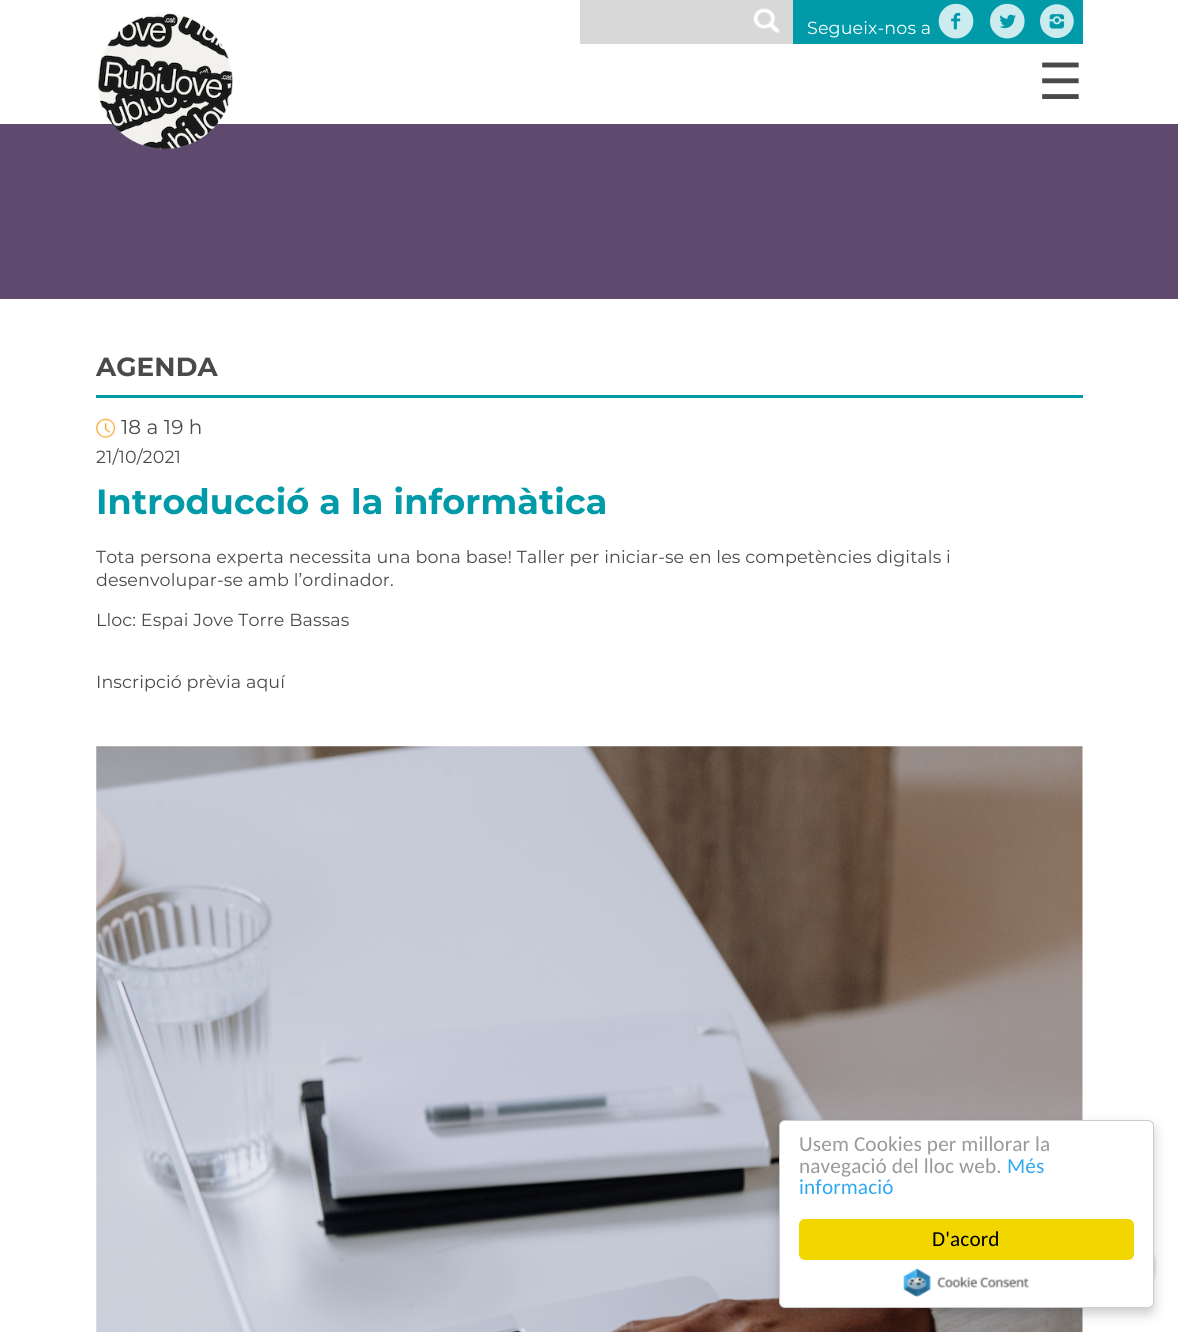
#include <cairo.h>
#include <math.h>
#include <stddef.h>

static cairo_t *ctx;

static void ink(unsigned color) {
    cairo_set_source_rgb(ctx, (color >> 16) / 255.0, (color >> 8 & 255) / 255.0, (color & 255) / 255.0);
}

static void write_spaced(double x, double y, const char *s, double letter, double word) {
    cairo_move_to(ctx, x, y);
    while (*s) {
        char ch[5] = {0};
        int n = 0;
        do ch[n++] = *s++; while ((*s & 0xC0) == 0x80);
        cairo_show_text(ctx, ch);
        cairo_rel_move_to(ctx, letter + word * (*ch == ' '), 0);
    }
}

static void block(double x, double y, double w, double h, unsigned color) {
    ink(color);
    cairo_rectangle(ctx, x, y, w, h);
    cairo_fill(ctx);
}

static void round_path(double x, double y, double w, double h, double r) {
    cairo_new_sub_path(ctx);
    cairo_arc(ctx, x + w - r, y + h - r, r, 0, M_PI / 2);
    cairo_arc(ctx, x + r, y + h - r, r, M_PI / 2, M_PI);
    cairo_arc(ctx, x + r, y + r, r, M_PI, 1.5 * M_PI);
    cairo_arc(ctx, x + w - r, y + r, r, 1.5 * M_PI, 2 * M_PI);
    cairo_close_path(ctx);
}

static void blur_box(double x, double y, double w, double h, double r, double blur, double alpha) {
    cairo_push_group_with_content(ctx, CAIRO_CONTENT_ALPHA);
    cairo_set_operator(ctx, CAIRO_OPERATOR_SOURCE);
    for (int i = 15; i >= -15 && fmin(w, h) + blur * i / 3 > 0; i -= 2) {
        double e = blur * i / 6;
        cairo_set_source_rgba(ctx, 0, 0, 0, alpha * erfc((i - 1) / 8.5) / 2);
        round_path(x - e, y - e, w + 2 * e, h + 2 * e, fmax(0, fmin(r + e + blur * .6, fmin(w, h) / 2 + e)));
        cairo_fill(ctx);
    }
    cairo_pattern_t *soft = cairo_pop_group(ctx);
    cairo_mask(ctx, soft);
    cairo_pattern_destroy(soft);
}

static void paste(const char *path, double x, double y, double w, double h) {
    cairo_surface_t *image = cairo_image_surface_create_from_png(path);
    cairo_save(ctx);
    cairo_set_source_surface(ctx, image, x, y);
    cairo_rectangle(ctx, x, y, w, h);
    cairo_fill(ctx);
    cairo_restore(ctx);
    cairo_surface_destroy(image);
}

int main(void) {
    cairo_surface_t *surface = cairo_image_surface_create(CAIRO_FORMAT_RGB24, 1178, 1332);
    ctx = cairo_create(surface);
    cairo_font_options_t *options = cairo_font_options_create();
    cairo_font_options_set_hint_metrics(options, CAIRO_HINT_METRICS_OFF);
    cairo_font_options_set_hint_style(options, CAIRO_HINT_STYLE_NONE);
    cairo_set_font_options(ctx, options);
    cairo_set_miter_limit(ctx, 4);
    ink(0xffffff);
    cairo_paint(ctx);
    block(580, 0, 213, 44, 0xd8d8d8);
    paste("pic1.png", 753, 8, 27, 25);
    block(793, 0, 290, 44, 0x009aa8);
    cairo_select_font_face(ctx, "Montserrat", CAIRO_FONT_SLANT_NORMAL, CAIRO_FONT_WEIGHT_NORMAL);
    cairo_set_font_size(ctx, 17.5);
    ink(0xffffff);
    write_spaced(807, 34, "Segueix-nos a", 0.12, 0);
    paste("pic2.png", 938, 3, 36, 36);
    paste("pic3.png", 990, 3, 35, 36);
    paste("pic4.png", 1040, 4, 34, 34);
    block(0, 124, 1178, 175, 0x5e4a6f);
    paste("pic5.png", 97, 13, 136, 137);
    cairo_select_font_face(ctx, "DejaVu Sans", CAIRO_FONT_SLANT_NORMAL, CAIRO_FONT_WEIGHT_NORMAL);
    cairo_set_font_size(ctx, 50);
    ink(0x4a4a4a);
    write_spaced(1038, 99, "☰", 0.12, 0);
    block(96, 395, 987, 3, 0x009aa8);
    cairo_select_font_face(ctx, "Montserrat", CAIRO_FONT_SLANT_NORMAL, CAIRO_FONT_WEIGHT_BOLD);
    cairo_set_font_size(ctx, 26.25);
    ink(0x4a4a4a);
    write_spaced(96, 376, "AGENDA", 0.12, 0);
    paste("pic6.png", 96, 418, 19, 20);
    cairo_select_font_face(ctx, "Montserrat", CAIRO_FONT_SLANT_NORMAL, CAIRO_FONT_WEIGHT_NORMAL);
    cairo_set_font_size(ctx, 20);
    write_spaced(121, 434, "18 a 19 h", 0.12, 0);
    cairo_set_font_size(ctx, 17.5);
    write_spaced(96, 463, "21/10/2021", 0.12, 0);
    cairo_select_font_face(ctx, "Montserrat", CAIRO_FONT_SLANT_NORMAL, CAIRO_FONT_WEIGHT_BOLD);
    cairo_set_font_size(ctx, 35);
    ink(0x009aa8);
    write_spaced(96, 514, "Introducció a la informàtica", 0.12, 0);
    cairo_select_font_face(ctx, "Montserrat", CAIRO_FONT_SLANT_NORMAL, CAIRO_FONT_WEIGHT_NORMAL);
    cairo_set_font_size(ctx, 17.5);
    ink(0x4a4a4a);
    write_spaced(96, 563, "Tota persona experta necessita una bona base! Taller per iniciar-se en les competències digitals i", 0.12, 0);
    write_spaced(96, 586, "desenvolupar-se amb l’ordinador.", 0.12, 0);
    write_spaced(96, 626, "Lloc: Espai Jove Torre Bassas", 0.12, 0);
    write_spaced(96, 688, "Inscripció prèvia aquí", 0.12, 0);
    paste("pic7.png", 96, 746, 987, 586);
    ink(0x000000);
    blur_box(1083, 1231, 71, 72, 35.5, 2, 0.3);
    blur_box(779, 1126, 375, 188, 6, 6, 0.2);
    ink(0xffffff);
    round_path(779.5, 1120.5, 374, 187, 5.5);
    cairo_fill_preserve(ctx);
    ink(0xcccccc);
    cairo_set_line_width(ctx, 1);
    cairo_stroke(ctx);
    cairo_select_font_face(ctx, "Carlito", CAIRO_FONT_SLANT_NORMAL, CAIRO_FONT_WEIGHT_NORMAL);
    cairo_set_font_size(ctx, 21.25);
    ink(0x999999);
    write_spaced(799, 1151, "Usem Cookies per millorar la", 0.12, 0);
    write_spaced(799, 1173, "navegació del lloc web.", 0.12, 0);
    ink(0x31a8f0);
    write_spaced(1007, 1173, "Més", 0.12, 0);
    write_spaced(799, 1194, "informació", 0.12, 0);
    ink(0xf1d600);
    round_path(799, 1219, 335, 41, 6);
    cairo_fill(ctx);
    ink(0x000000);
    write_spaced(932, 1246, "D'acord", 0.12, 0);
    paste("pic8.png", 903, 1268, 126, 29);
    cairo_surface_write_to_png(surface, "screenshot.png");
    cairo_font_options_destroy(options);
    cairo_destroy(ctx);
    cairo_surface_destroy(surface);
    return 0;
}
